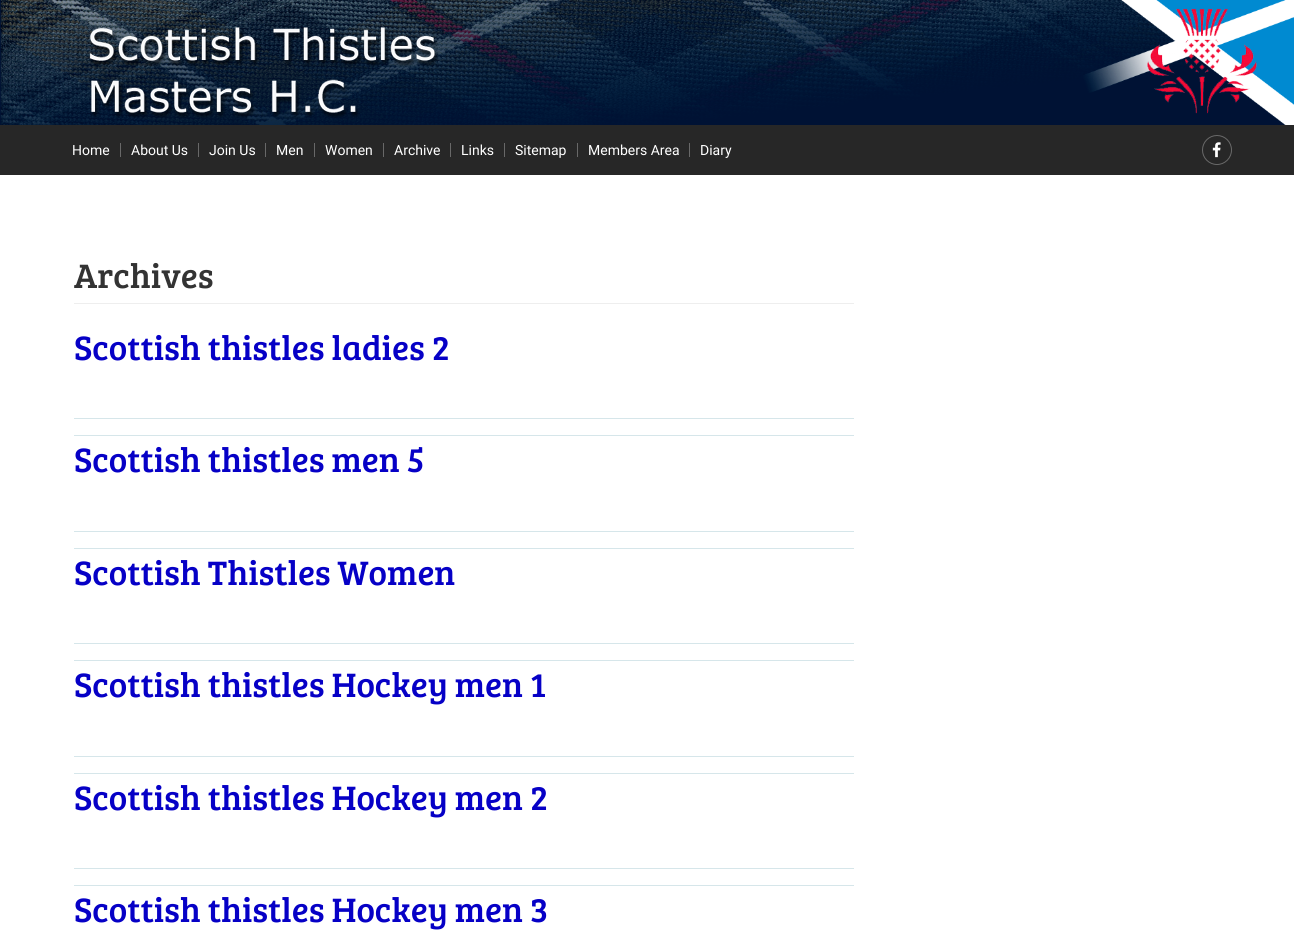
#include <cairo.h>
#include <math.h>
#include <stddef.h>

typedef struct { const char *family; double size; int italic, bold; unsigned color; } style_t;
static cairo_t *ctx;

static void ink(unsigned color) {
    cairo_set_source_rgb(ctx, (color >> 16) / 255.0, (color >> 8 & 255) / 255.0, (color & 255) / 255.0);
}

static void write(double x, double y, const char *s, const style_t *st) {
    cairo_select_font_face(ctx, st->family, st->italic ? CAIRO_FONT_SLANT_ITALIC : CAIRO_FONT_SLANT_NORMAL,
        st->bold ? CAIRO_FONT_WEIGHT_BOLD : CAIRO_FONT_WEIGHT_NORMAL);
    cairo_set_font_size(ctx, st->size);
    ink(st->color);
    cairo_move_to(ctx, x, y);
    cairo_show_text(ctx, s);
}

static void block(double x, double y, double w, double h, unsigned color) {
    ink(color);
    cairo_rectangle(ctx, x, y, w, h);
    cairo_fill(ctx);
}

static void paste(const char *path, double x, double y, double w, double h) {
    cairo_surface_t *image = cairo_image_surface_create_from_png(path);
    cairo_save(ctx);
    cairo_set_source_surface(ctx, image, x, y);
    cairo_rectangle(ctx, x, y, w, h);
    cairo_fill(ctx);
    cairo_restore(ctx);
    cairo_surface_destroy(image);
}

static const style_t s1 = {"Roboto", 14, 0, 0, 0xffffff};
static const style_t s2 = {"Bree Serif", 35, 0, 0, 0x333333};
static const style_t s3 = {"Bree Serif", 35, 0, 0, 0x0600c6};

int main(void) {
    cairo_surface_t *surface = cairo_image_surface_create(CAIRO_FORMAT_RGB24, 1294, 951);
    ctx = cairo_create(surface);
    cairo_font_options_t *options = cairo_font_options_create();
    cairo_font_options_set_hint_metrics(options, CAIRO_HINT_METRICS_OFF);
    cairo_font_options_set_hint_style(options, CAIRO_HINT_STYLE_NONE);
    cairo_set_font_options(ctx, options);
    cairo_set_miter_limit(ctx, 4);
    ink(0xffffff);
    cairo_paint(ctx);
    paste("pic1.png", 0, 0, 1294, 125);
    paste("pic2.png", 89, 27, 350, 91);
    block(0, 125, 1294, 50, 0x272727);
    block(120, 143, 1, 14, 0x686868);
    write(72, 155, "Home", &s1);
    block(198, 143, 1, 14, 0x686868);
    write(131, 155, "About Us", &s1);
    block(265, 143, 1, 14, 0x686868);
    write(209, 155, "Join Us", &s1);
    block(314, 143, 1, 14, 0x686868);
    write(276, 155, "Men", &s1);
    block(383, 143, 1, 14, 0x686868);
    write(325, 155, "Women", &s1);
    block(450, 143, 1, 14, 0x686868);
    write(394, 155, "Archive", &s1);
    block(504, 143, 1, 14, 0x686868);
    write(461, 155, "Links", &s1);
    block(577, 143, 1, 14, 0x686868);
    write(515, 155, "Sitemap", &s1);
    block(689, 143, 1, 14, 0x686868);
    write(588, 155, "Members Area", &s1);
    write(700, 155, "Diary", &s1);
    cairo_new_path(ctx);
    cairo_arc(ctx, 1217, 150, 14.5, 0, 2 * M_PI);
    ink(0x686868);
    cairo_set_line_width(ctx, 1);
    cairo_stroke(ctx);
    paste("pic3.png", 1212, 142, 9, 16);
    block(74, 303, 780, 1, 0xeeeeee);
    write(74, 288, "Archives", &s2);
    write(74, 360, "Scottish thistles ladies 2", &s3);
    block(74, 418, 780, 1, 0xd6e6ea);
    block(74, 435, 780, 1, 0xd6e6ea);
    write(74, 472, "Scottish thistles men 5", &s3);
    block(74, 531, 780, 1, 0xd6e6ea);
    block(74, 548, 780, 1, 0xd6e6ea);
    write(74, 585, "Scottish Thistles Women", &s3);
    block(74, 643, 780, 1, 0xd6e6ea);
    block(74, 660, 780, 1, 0xd6e6ea);
    write(74, 697, "Scottish thistles Hockey men 1", &s3);
    block(74, 756, 780, 1, 0xd6e6ea);
    block(74, 773, 780, 1, 0xd6e6ea);
    write(74, 810, "Scottish thistles Hockey men 2", &s3);
    block(74, 868, 780, 1, 0xd6e6ea);
    block(74, 885, 780, 1, 0xd6e6ea);
    write(74, 922, "Scottish thistles Hockey men 3", &s3);
    cairo_surface_write_to_png(surface, "screenshot.png");
    cairo_font_options_destroy(options);
    cairo_destroy(ctx);
    cairo_surface_destroy(surface);
    return 0;
}
